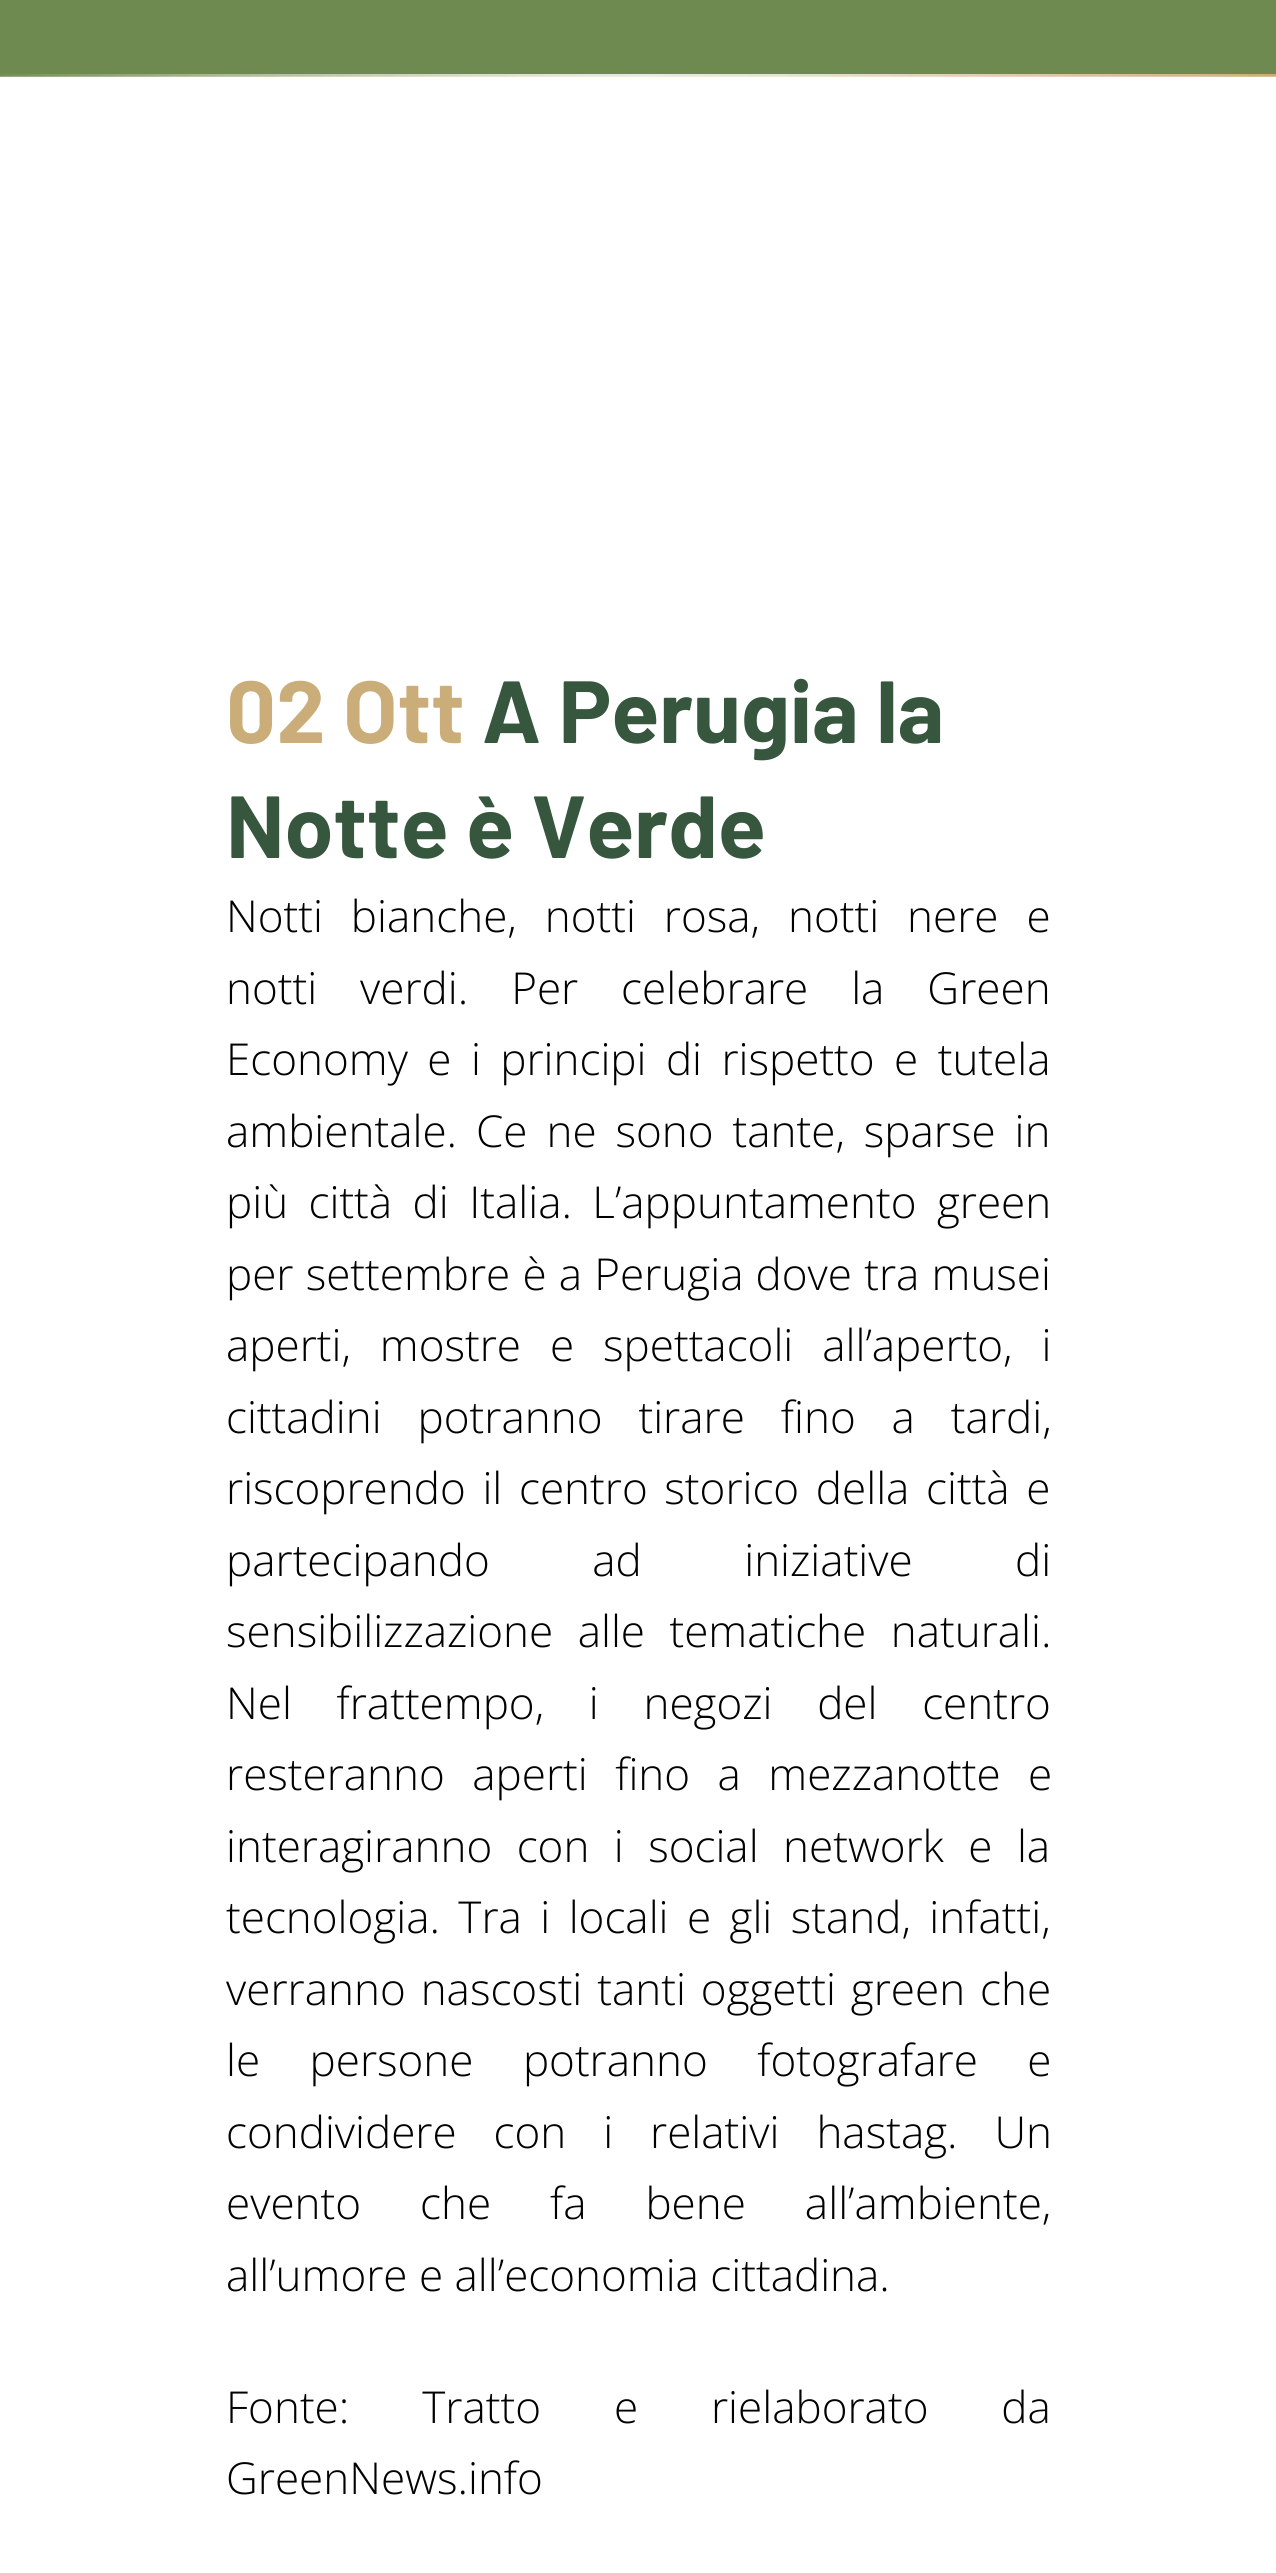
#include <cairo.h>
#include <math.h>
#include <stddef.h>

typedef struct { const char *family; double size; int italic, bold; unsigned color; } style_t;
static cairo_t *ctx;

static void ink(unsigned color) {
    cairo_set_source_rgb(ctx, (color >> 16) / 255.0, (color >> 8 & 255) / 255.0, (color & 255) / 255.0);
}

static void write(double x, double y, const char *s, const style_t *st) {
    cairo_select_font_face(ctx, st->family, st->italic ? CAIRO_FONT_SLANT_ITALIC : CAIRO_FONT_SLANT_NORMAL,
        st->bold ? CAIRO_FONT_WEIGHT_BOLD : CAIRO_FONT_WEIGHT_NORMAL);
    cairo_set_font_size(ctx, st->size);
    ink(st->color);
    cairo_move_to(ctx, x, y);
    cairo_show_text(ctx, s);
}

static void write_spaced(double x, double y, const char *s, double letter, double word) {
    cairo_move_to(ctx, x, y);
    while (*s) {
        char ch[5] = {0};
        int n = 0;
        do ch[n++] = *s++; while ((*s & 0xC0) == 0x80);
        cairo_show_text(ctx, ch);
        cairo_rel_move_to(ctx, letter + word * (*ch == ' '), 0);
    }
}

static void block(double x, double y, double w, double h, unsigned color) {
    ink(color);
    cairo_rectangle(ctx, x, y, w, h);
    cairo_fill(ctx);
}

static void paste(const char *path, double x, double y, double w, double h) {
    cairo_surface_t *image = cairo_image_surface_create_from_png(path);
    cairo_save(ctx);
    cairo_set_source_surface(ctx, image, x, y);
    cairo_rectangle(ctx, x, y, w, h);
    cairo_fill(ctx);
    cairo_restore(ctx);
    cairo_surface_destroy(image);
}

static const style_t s1 = {"Barlow", 88, 0, 1, 0xcaad79};
static const style_t s2 = {"Barlow", 88, 0, 1, 0x36563d};
static const style_t s3 = {"Open Sans Light", 44, 0, 0, 0x000000};

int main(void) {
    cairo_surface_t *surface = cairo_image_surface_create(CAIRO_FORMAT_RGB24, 1276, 2573);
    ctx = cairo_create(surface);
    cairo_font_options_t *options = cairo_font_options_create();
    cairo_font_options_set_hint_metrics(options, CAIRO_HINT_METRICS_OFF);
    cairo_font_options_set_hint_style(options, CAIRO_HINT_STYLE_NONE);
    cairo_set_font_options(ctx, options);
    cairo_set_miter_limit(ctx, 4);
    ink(0xffffff);
    cairo_paint(ctx);
    paste("pic1.png", 0, 74, 1276, 3);
    block(0, 0, 1276, 74, 0x6e8a51);
    write(226, 743, "02 Ott", &s1);
    write(482, 743, "A Perugia la", &s2);
    write(226, 858, "Notte è Verde", &s2);
    cairo_select_font_face(ctx, "Open Sans Light", CAIRO_FONT_SLANT_NORMAL, CAIRO_FONT_WEIGHT_NORMAL);
    cairo_set_font_size(ctx, 44);
    ink(0x000000);
    write_spaced(226, 932, "Notti bianche, notti rosa, notti nere e", 0, 16.5);
    write_spaced(226, 1004, "notti verdi. Per celebrare la Green", 0, 31.5);
    write_spaced(226, 1075, "Economy e i principi di rispetto e tutela", 0, 8);
    write_spaced(226, 1147, "ambientale. Ce ne sono tante, sparse in", 0, 7.5);
    write_spaced(226, 1218, "più città di Italia. L’appuntamento green", 0, 9);
    write_spaced(226, 1290, "per settembre è a Perugia dove tra musei", 0, 0.75);
    write_spaced(226, 1361, "aperti, mostre e spettacoli all’aperto, i", 0, 17.5);
    write_spaced(226, 1433, "cittadini potranno tirare fino a tardi,", 0, 24.5);
    write_spaced(226, 1504, "riscoprendo il centro storico della città e", 0, 5.25);
    write_spaced(226, 1576, "partecipando ad iniziative di", 0, 91);
    write_spaced(226, 1647, "sensibilizzazione alle tematiche naturali.", 0, 13);
    write_spaced(226, 1719, "Nel frattempo, i negozi del centro", 0, 33.25);
    write_spaced(226, 1790, "resteranno aperti fino a mezzanotte e", 0, 16);
    write_spaced(226, 1862, "interagiranno con i social network e la", 0, 13);
    write_spaced(226, 1933, "tecnologia. Tra i locali e gli stand, infatti,", 0, 7);
    write_spaced(226, 2005, "verranno nascosti tanti oggetti green che", 0, 3.5);
    write_spaced(226, 2076, "le persone potranno fotografare e", 0, 38);
    write_spaced(226, 2148, "condividere con i relativi hastag. Un", 0, 25.5);
    write_spaced(226, 2219, "evento che fa bene all’ambiente,", 0, 47.5);
    write(226, 2291, "all’umore e all’economia cittadina.", &s3);
    write_spaced(226, 2423, "Fonte: Tratto e rielaborato da", 0, 61.5);
    write(226, 2494, "GreenNews.info", &s3);
    cairo_surface_write_to_png(surface, "screenshot.png");
    cairo_font_options_destroy(options);
    cairo_destroy(ctx);
    cairo_surface_destroy(surface);
    return 0;
}
